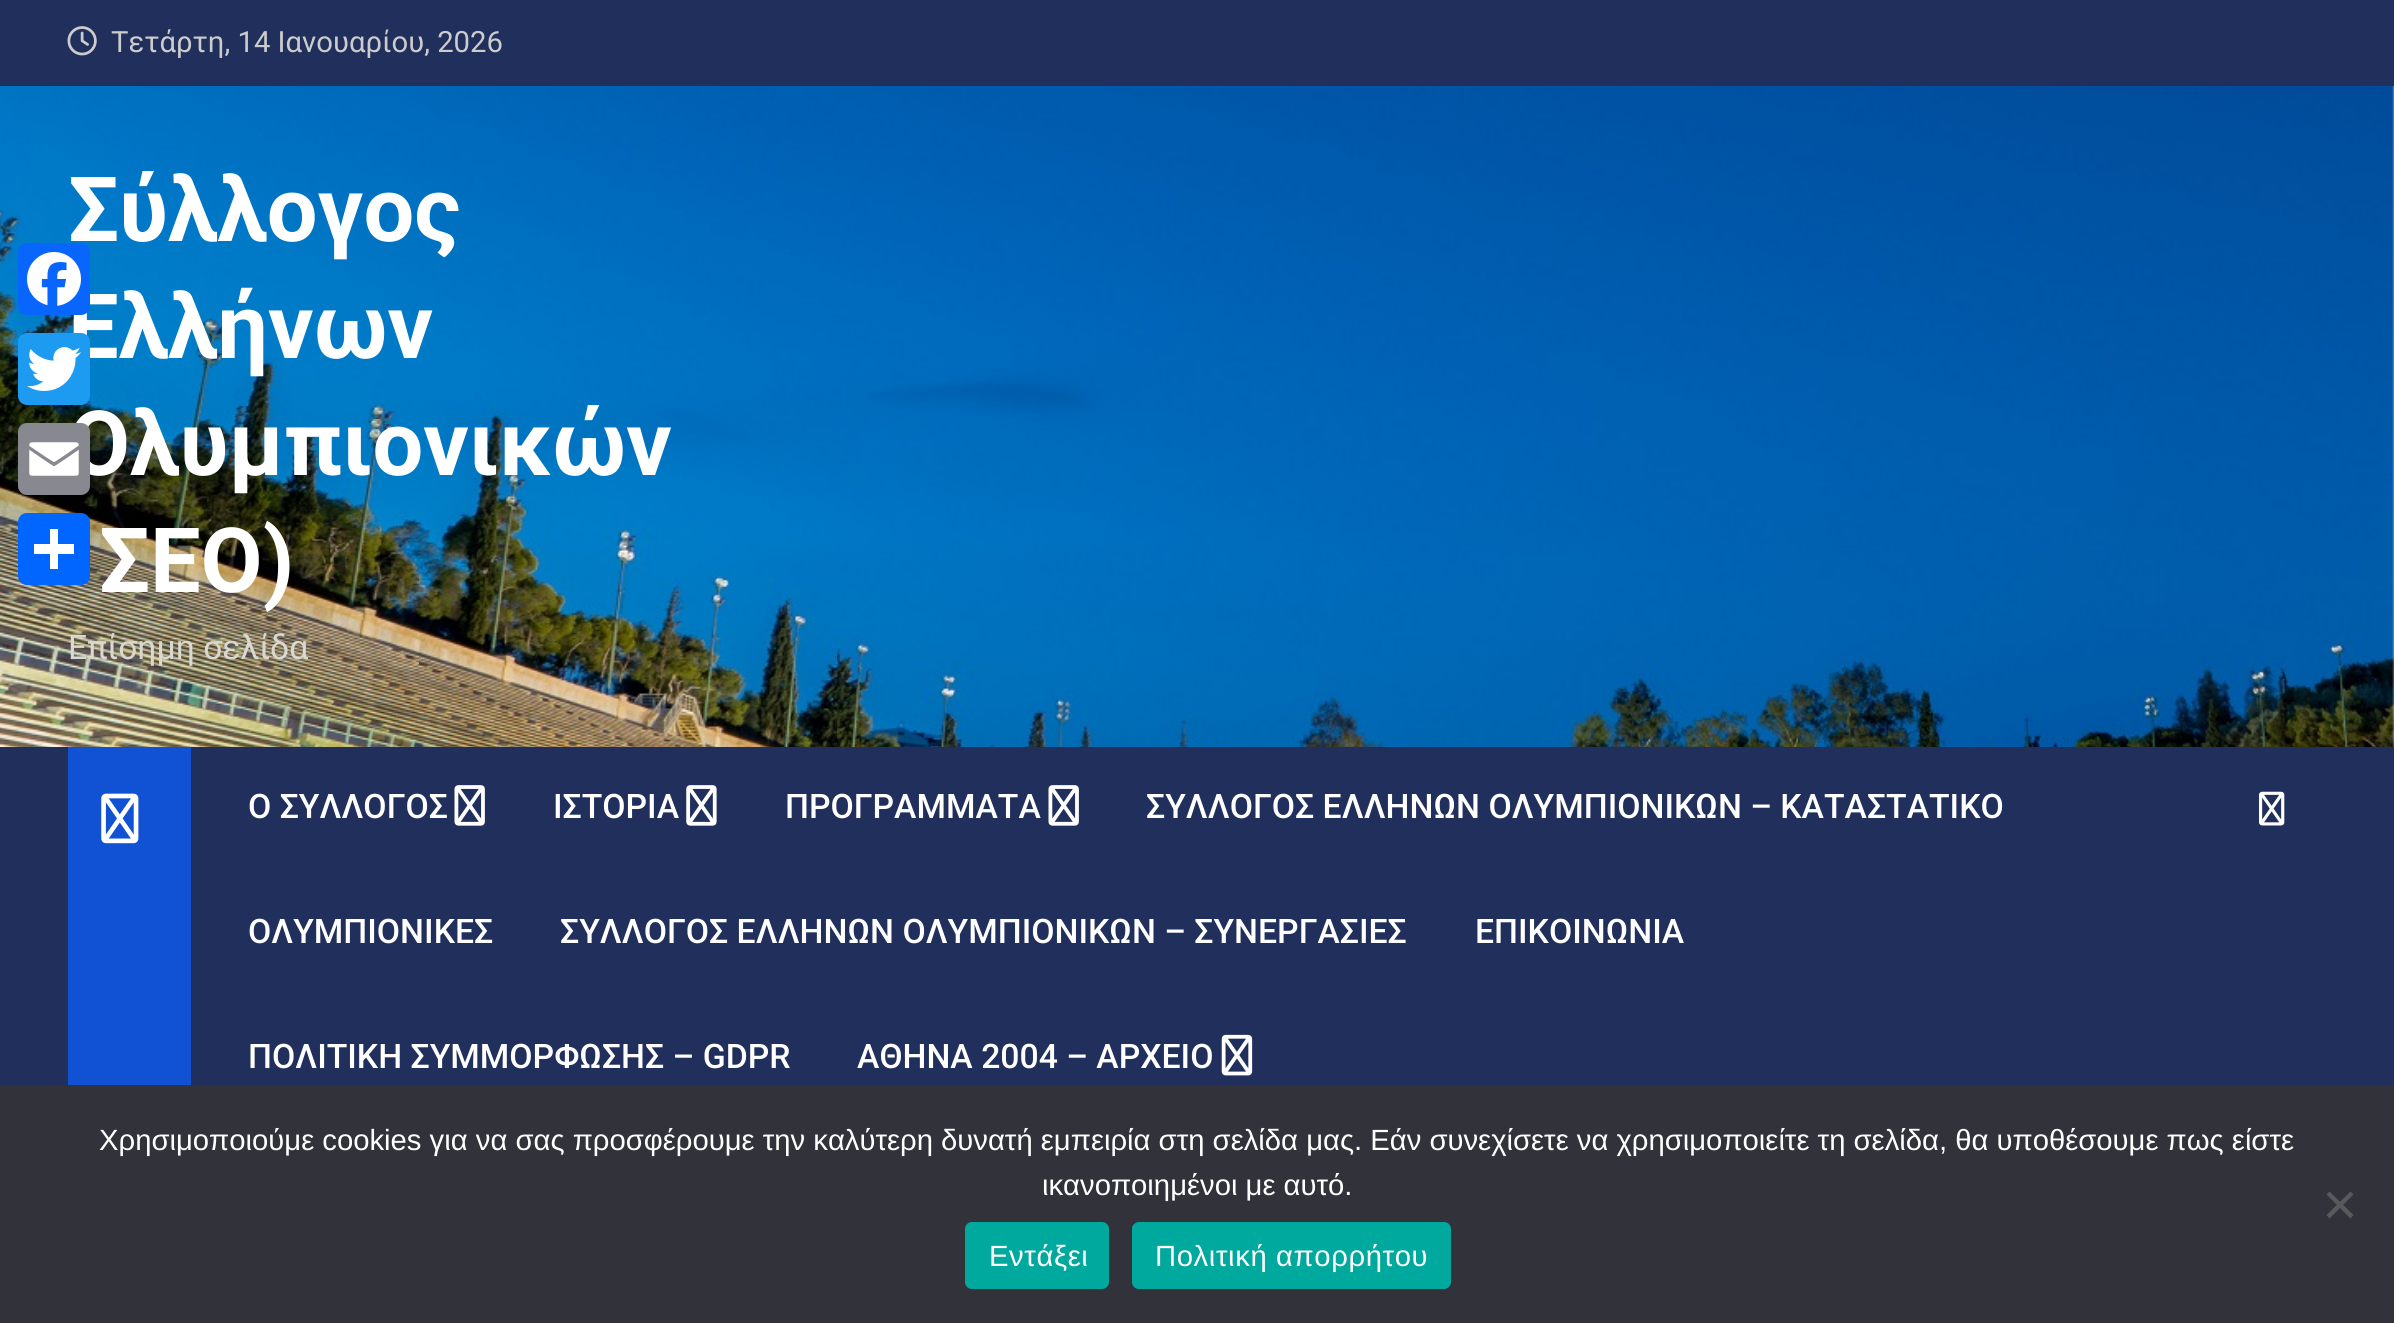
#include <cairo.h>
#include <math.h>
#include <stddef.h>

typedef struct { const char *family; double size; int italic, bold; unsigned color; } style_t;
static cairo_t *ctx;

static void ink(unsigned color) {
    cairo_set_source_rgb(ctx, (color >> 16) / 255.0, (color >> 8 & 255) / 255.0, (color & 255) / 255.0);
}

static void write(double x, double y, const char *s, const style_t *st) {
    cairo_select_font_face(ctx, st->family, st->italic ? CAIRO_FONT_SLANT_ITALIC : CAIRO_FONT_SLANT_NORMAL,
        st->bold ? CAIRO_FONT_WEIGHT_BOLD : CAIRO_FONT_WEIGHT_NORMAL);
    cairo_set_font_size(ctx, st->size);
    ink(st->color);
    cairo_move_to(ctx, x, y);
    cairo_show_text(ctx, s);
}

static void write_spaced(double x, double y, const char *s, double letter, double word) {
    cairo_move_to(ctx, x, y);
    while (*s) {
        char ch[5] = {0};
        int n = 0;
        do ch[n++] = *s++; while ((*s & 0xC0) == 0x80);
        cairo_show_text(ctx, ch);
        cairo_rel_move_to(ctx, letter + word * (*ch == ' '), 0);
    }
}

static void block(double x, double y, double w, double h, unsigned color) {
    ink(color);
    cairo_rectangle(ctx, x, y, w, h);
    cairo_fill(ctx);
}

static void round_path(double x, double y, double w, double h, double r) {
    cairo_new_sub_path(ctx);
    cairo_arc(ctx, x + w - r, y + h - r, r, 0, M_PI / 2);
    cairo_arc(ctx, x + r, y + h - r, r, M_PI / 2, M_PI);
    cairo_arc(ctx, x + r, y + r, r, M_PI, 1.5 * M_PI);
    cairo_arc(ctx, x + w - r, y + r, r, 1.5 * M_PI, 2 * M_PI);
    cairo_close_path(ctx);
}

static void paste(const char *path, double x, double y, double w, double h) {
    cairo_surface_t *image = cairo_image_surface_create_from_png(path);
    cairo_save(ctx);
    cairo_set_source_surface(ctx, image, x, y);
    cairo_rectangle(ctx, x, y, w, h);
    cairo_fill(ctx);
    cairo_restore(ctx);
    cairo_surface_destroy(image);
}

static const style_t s1 = {"Roboto", 90, 0, 1, 0xffffff};
static const style_t s2 = {"Roboto", 29.25, 0, 0, 0xcccccc};
static const style_t s3 = {"Roboto", 33.75, 0, 0, 0xdad8d1};
static const style_t s4 = {"Roboto Medium", 33.75, 0, 0, 0xffffff};
static const style_t s5 = {"Liberation Sans", 29.25, 0, 0, 0xffffff};

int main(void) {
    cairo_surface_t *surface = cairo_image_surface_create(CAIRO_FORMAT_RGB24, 2394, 1323);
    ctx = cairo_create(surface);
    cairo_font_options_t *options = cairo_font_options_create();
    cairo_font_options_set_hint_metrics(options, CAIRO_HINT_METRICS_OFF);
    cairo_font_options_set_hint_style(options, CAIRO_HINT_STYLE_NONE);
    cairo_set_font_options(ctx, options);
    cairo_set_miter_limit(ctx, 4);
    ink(0xffffff);
    cairo_paint(ctx);
    paste("pic1.png", 0, 86, 2394, 661);
    write(68, 241, "Σύλλογος", &s1);
    write(68, 358, "Ελλήνων", &s1);
    ink(0x0866ff);
    round_path(18, 243, 72, 72, 9);
    cairo_fill(ctx);
    paste("pic2.png", 27, 252, 54, 54);
    ink(0x1d9bf0);
    round_path(18, 333, 72, 72, 9);
    cairo_fill(ctx);
    paste("pic3.png", 27, 347, 54, 44);
    write(68, 475, "Ολυμπιονικών", &s1);
    ink(0x888990);
    round_path(18, 423, 72, 72, 9);
    cairo_fill(ctx);
    paste("pic4.png", 29, 442, 50, 34);
    ink(0x0166ff);
    round_path(18, 513, 72, 72, 9);
    cairo_fill(ctx);
    block(50, 529, 8, 40, 0xffffff);
    block(34, 544, 40, 10, 0xffffff);
    block(0, 0, 2394, 86, 0x202f5b);
    paste("pic5.png", 67, 26, 30, 30);
    write(111, 52, "Τετάρτη, 14 Ιανουαρίου, 2026", &s2);
    write(99, 592, "ΣΕΟ)", &s1);
    write(68, 659, "Επίσημη σελίδα", &s3);
    block(0, 747, 2394, 338, 0x202f5b);
    block(68, 747, 123, 338, 0x1151d3);
    paste("pic6.png", 101, 793, 38, 51);
    write(248, 818, "Ο ΣΥΛΛΟΓΟΣ", &s4);
    paste("pic7.png", 454, 785, 31, 41);
    write(553, 818, "ΙΣΤΟΡΙΑ", &s4);
    paste("pic8.png", 686, 785, 31, 41);
    write(785, 818, "ΠΡΟΓΡΑΜΜΑΤΑ", &s4);
    paste("pic7.png", 1048, 785, 31, 41);
    write(1146, 818, "ΣΥΛΛΟΓΟΣ ΕΛΛΗΝΩΝ ΟΛΥΜΠΙΟΝΙΚΩΝ – ΚΑΤΑΣΤΑΤΙΚΟ", &s4);
    write(248, 943, "ΟΛΥΜΠΙΟΝΙΚΕΣ", &s4);
    write(560, 943, "ΣΥΛΛΟΓΟΣ ΕΛΛΗΝΩΝ ΟΛΥΜΠΙΟΝΙΚΩΝ – ΣΥΝΕΡΓΑΣΙΕΣ", &s4);
    write(1475, 943, "ΕΠΙΚΟΙΝΩΝΙΑ", &s4);
    write(248, 1068, "ΠΟΛΙΤΙΚΗ ΣΥΜΜΟΡΦΩΣΗΣ – GDPR", &s4);
    write(857, 1068, "ΑΘΗΝΑ 2004 – ΑΡΧΕΙΟ", &s4);
    paste("pic9.png", 1221, 1034, 32, 42);
    paste("pic10.png", 2259, 791, 26, 35);
    block(0, 1085, 2394, 238, 0x32323a);
    write(99, 1150, "Χρησιμοποιούμε cookies για να σας προσφέρουμε την καλύτερη δυνατή εμπειρία στη σελίδα μας. Εάν συνεχίσετε να χρησιμοποιείτε τη σελίδα, θα υποθέσουμε πως είστε", &s5);
    write(1042, 1195, "ικανοποιημένοι με αυτό.", &s5);
    ink(0x59595d);
    cairo_new_path(ctx);
    cairo_move_to(ctx, 2350.5, 1191.5);
    cairo_line_to(ctx, 2353.5, 1194.5);
    cairo_line_to(ctx, 2329.5, 1218.5);
    cairo_line_to(ctx, 2326.5, 1215);
    cairo_close_path(ctx);
    cairo_fill(ctx);
    cairo_new_path(ctx);
    cairo_move_to(ctx, 2326.5, 1194.5);
    cairo_line_to(ctx, 2329.5, 1191.5);
    cairo_line_to(ctx, 2353.5, 1215);
    cairo_line_to(ctx, 2350.5, 1218.5);
    cairo_close_path(ctx);
    cairo_fill(ctx);
    ink(0x00a99d);
    round_path(965, 1222, 144, 67, 7);
    cairo_fill(ctx);
    ink(0xffffff);
    write_spaced(989, 1266, "Εντάξει", 0.6, 0);
    ink(0x00a99d);
    round_path(1132, 1222, 319, 67, 7);
    cairo_fill(ctx);
    ink(0xffffff);
    write_spaced(1155, 1266, "Πολιτική απορρήτου", 0.6, 0);
    cairo_surface_write_to_png(surface, "screenshot.png");
    cairo_font_options_destroy(options);
    cairo_destroy(ctx);
    cairo_surface_destroy(surface);
    return 0;
}
